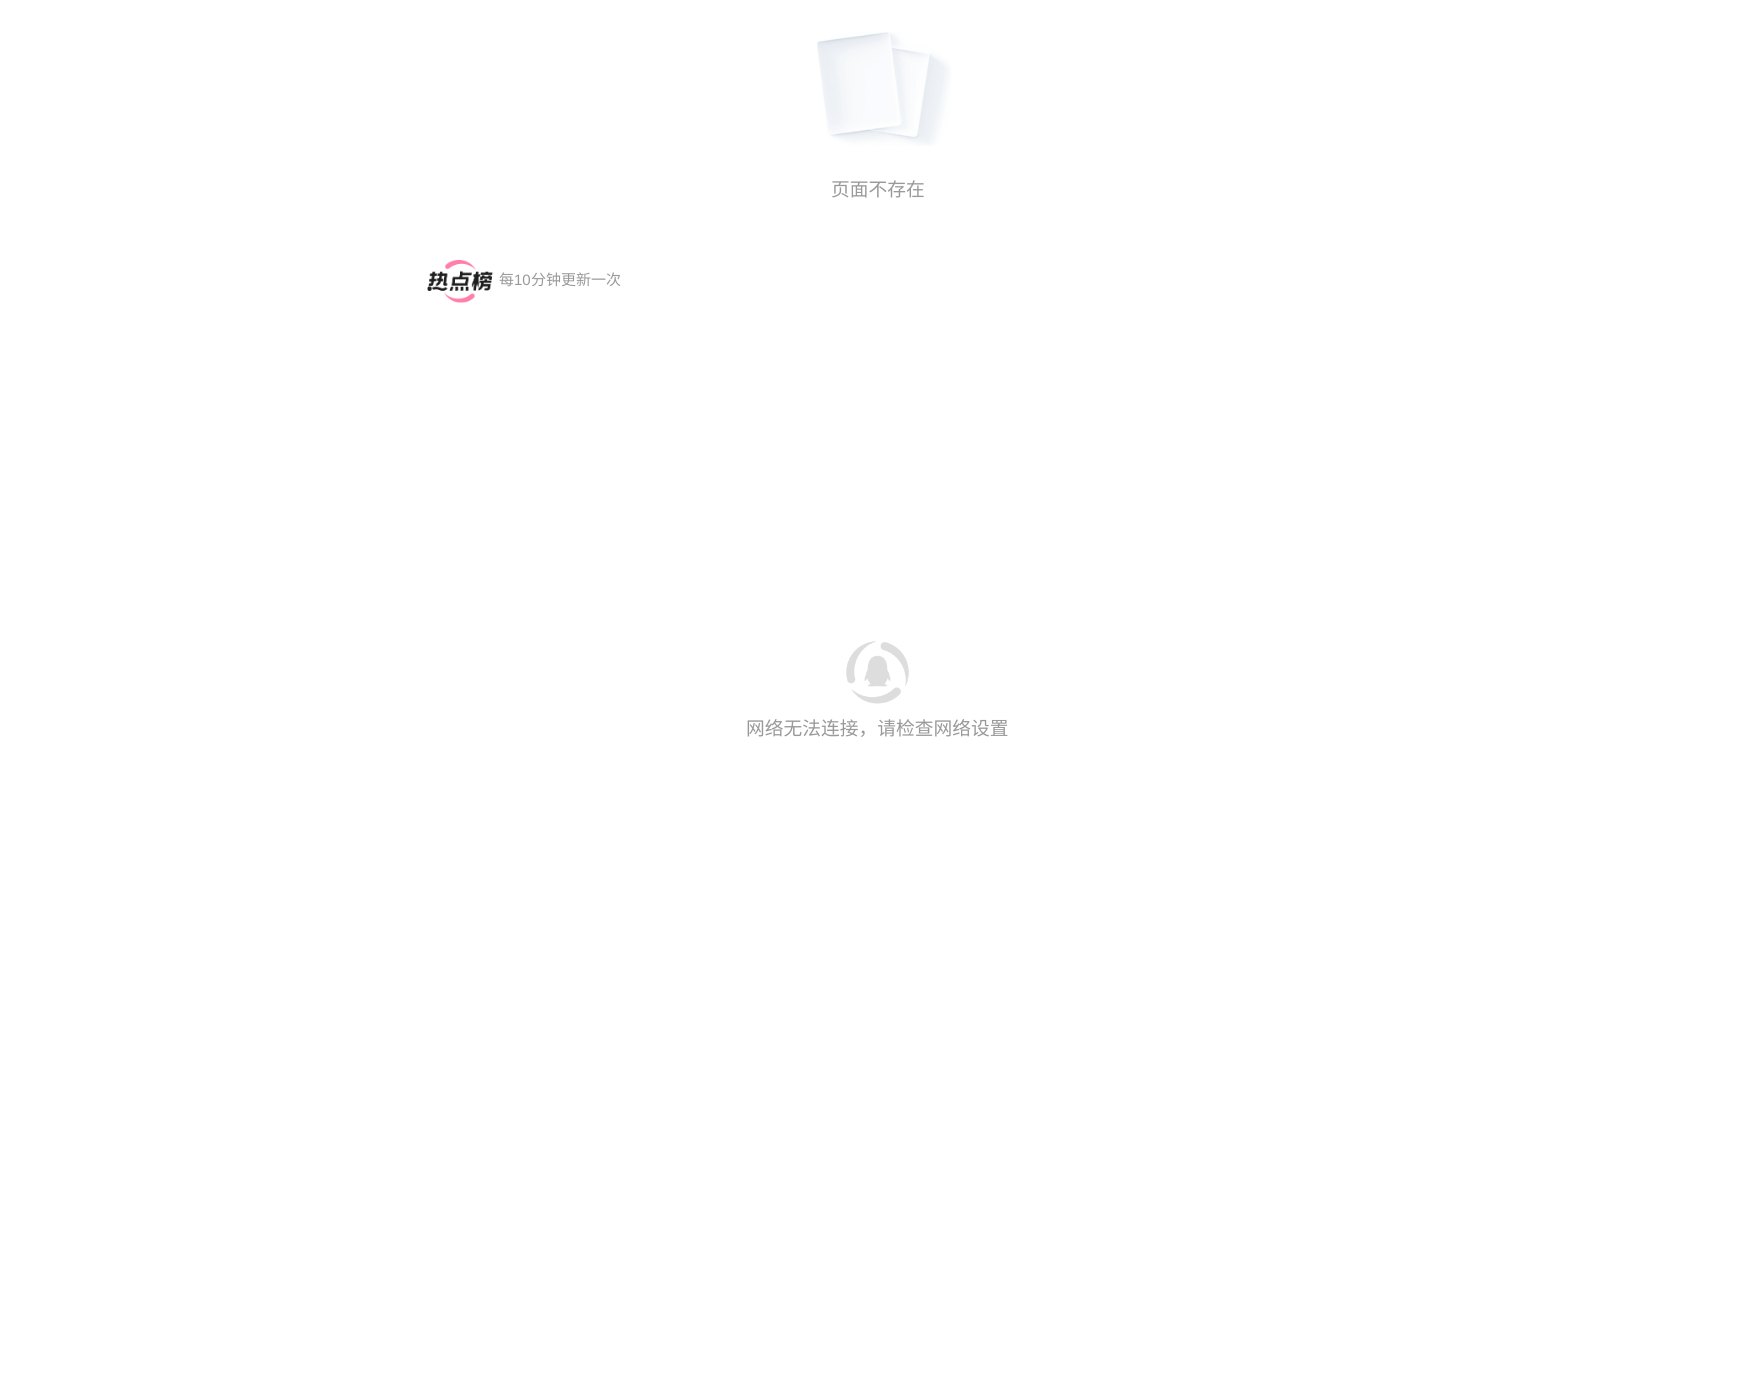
#include <cairo.h>
#include <math.h>
#include <stddef.h>

typedef struct { const char *family; double size; int italic, bold; unsigned color; } style_t;
static cairo_t *ctx;

static void ink(unsigned color) {
    cairo_set_source_rgb(ctx, (color >> 16) / 255.0, (color >> 8 & 255) / 255.0, (color & 255) / 255.0);
}

static void write(double x, double y, const char *s, const style_t *st) {
    cairo_select_font_face(ctx, st->family, st->italic ? CAIRO_FONT_SLANT_ITALIC : CAIRO_FONT_SLANT_NORMAL,
        st->bold ? CAIRO_FONT_WEIGHT_BOLD : CAIRO_FONT_WEIGHT_NORMAL);
    cairo_set_font_size(ctx, st->size);
    ink(st->color);
    cairo_move_to(ctx, x, y);
    cairo_show_text(ctx, s);
}

static void paste(const char *path, double x, double y, double w, double h) {
    cairo_surface_t *image = cairo_image_surface_create_from_png(path);
    cairo_save(ctx);
    cairo_set_source_surface(ctx, image, x, y);
    cairo_rectangle(ctx, x, y, w, h);
    cairo_fill(ctx);
    cairo_restore(ctx);
    cairo_surface_destroy(image);
}

static const style_t s1 = {"Noto Sans CJK SC", 18.75, 0, 0, 0x999999};
static const style_t s2 = {"Noto Sans CJK SC", 15, 0, 0, 0x999999};
static const style_t s3 = {"Liberation Sans", 15, 0, 0, 0x999999};

int main(void) {
    cairo_surface_t *surface = cairo_image_surface_create(CAIRO_FORMAT_RGB24, 1755, 1379);
    ctx = cairo_create(surface);
    cairo_font_options_t *options = cairo_font_options_create();
    cairo_font_options_set_hint_metrics(options, CAIRO_HINT_METRICS_OFF);
    cairo_font_options_set_hint_style(options, CAIRO_HINT_STYLE_NONE);
    cairo_set_font_options(ctx, options);
    cairo_set_miter_limit(ctx, 4);
    ink(0xffffff);
    cairo_paint(ctx);
    paste("pic1.png", 817, 32, 134, 114);
    write(831, 196, "页面不存在", &s1);
    paste("pic2.png", 427, 260, 66, 43);
    write(499, 285, "每", &s2);
    write(514, 285, "10", &s3);
    write(531, 285, "分钟更新一次", &s2);
    paste("pic3.png", 846, 641, 63, 63);
    write(746, 735, "网络无法连接，请检查网络设置", &s1);
    cairo_surface_write_to_png(surface, "screenshot.png");
    cairo_font_options_destroy(options);
    cairo_destroy(ctx);
    cairo_surface_destroy(surface);
    return 0;
}
